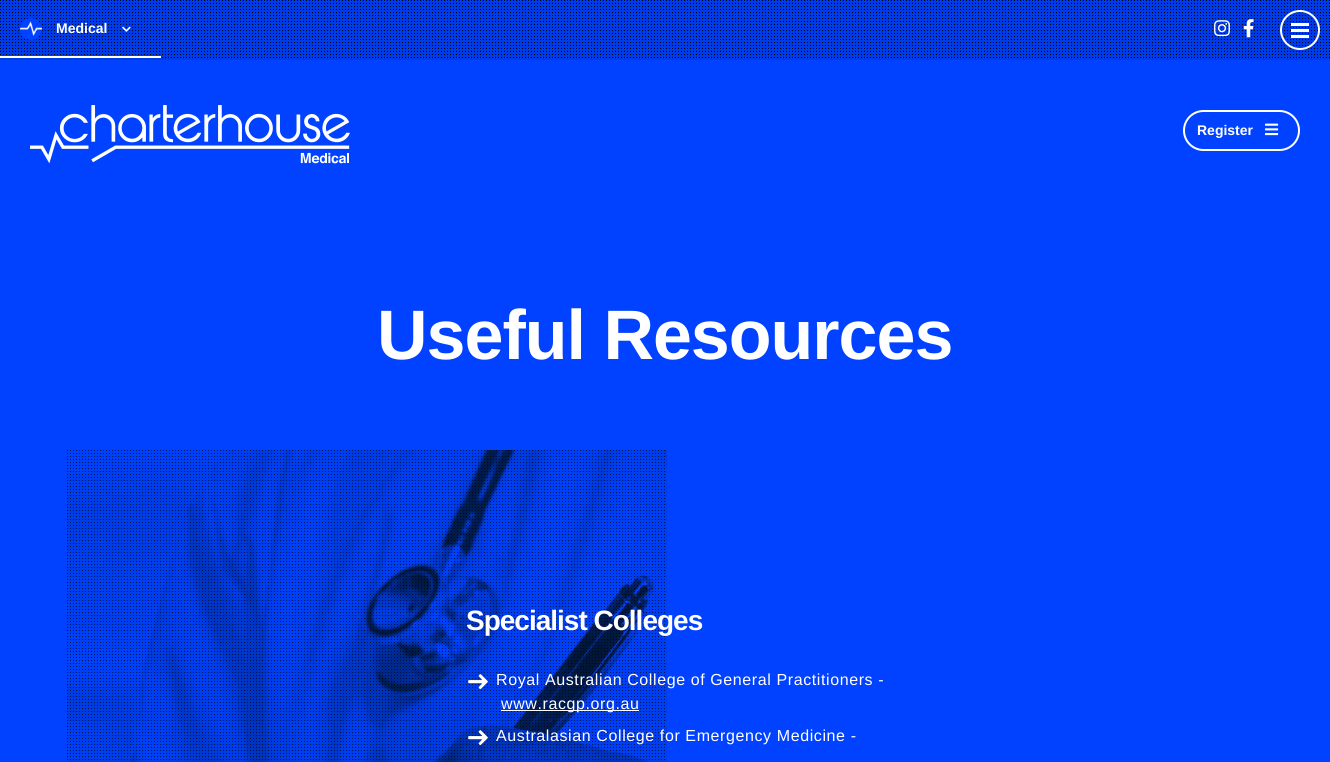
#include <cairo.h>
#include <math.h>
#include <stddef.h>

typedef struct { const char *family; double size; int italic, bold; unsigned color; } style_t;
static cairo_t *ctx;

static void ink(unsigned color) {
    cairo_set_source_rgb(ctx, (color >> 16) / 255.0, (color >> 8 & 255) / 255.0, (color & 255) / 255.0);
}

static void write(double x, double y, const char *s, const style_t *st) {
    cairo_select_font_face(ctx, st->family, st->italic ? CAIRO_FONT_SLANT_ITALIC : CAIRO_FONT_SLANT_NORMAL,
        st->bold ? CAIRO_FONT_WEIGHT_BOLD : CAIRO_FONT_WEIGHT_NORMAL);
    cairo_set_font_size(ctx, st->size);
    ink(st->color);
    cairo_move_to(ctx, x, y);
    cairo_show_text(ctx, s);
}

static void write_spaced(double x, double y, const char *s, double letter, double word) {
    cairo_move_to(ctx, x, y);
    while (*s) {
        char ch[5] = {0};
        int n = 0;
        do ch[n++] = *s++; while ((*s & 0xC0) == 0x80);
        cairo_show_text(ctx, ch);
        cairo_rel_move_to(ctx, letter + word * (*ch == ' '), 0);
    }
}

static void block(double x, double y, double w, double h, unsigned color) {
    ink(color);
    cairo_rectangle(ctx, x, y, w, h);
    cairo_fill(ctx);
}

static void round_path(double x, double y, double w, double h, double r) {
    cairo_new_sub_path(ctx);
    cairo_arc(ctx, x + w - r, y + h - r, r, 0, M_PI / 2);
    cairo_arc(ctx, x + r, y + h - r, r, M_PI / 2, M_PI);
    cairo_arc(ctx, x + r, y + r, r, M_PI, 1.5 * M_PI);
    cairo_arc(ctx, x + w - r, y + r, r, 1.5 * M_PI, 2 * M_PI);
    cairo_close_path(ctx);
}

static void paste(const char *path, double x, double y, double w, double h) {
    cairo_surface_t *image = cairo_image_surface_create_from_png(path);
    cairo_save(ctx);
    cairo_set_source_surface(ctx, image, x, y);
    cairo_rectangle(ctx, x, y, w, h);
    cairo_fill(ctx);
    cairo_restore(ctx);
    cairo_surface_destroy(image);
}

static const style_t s1 = {"Liberation Sans", 14, 0, 1, 0xffffff};

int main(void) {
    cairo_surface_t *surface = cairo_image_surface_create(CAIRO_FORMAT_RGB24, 1330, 762);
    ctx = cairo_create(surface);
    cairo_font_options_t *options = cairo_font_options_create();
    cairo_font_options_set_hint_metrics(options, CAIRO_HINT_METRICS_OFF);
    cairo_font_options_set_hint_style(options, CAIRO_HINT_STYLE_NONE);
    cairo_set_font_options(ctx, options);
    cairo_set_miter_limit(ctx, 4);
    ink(0x0042ff);
    cairo_paint(ctx);
    block(0, 0, 1330, 60, 0x003be6);
    paste("pic1.png", 0, 0, 1330, 58);
    paste("pic2.png", 20, 18, 22, 22);
    write(56, 33, "Medical", &s1);
    paste("pic3.png", 122, 26, 9, 6);
    block(0, 56, 161, 2, 0xffffff);
    paste("pic4.png", 1214, 20, 16, 17);
    paste("pic5.png", 1243, 19, 11, 19);
    cairo_arc(ctx, 1300, 30, 19, 0, 2 * M_PI);
    cairo_stroke(ctx);
    block(1291, 29, 18, 3, 0xffffff);
    block(1291, 23, 18, 3, 0xffffff);
    block(1291, 35, 18, 3, 0xffffff);
    paste("pic6.png", 30, 105, 320, 59);
    round_path(1184, 111, 115, 39, 19.5);
    cairo_stroke(ctx);
    write(1197, 135, "Register", &s1);
    paste("pic7.png", 1265, 123, 14, 13);
    cairo_set_font_size(ctx, 70);
    write_spaced(377, 359, "Useful Resources", -1, 0);
    paste("pic8.png", 67, 450, 600, 312);
    paste("pic9.png", 67, 450, 598, 310);
    cairo_set_font_size(ctx, 28);
    write_spaced(466, 630, "Specialist Colleges", -1, 0);
    paste("pic10.png", 468, 674, 20, 15);
    cairo_select_font_face(ctx, "Liberation Sans", CAIRO_FONT_SLANT_NORMAL, CAIRO_FONT_WEIGHT_NORMAL);
    cairo_set_font_size(ctx, 16);
    write_spaced(496, 685, "Royal Australian College of General Practitioners -", 0.6, 0);
    block(501, 710, 138, 1, 0xffffff);
    write_spaced(501, 709, "www.racgp.org.au", 0.6, 0);
    paste("pic11.png", 468, 730, 20, 15);
    write_spaced(496, 741, "Australasian College for Emergency Medicine -", 0.6, 0);
    cairo_surface_write_to_png(surface, "screenshot.png");
    cairo_font_options_destroy(options);
    cairo_destroy(ctx);
    cairo_surface_destroy(surface);
    return 0;
}
